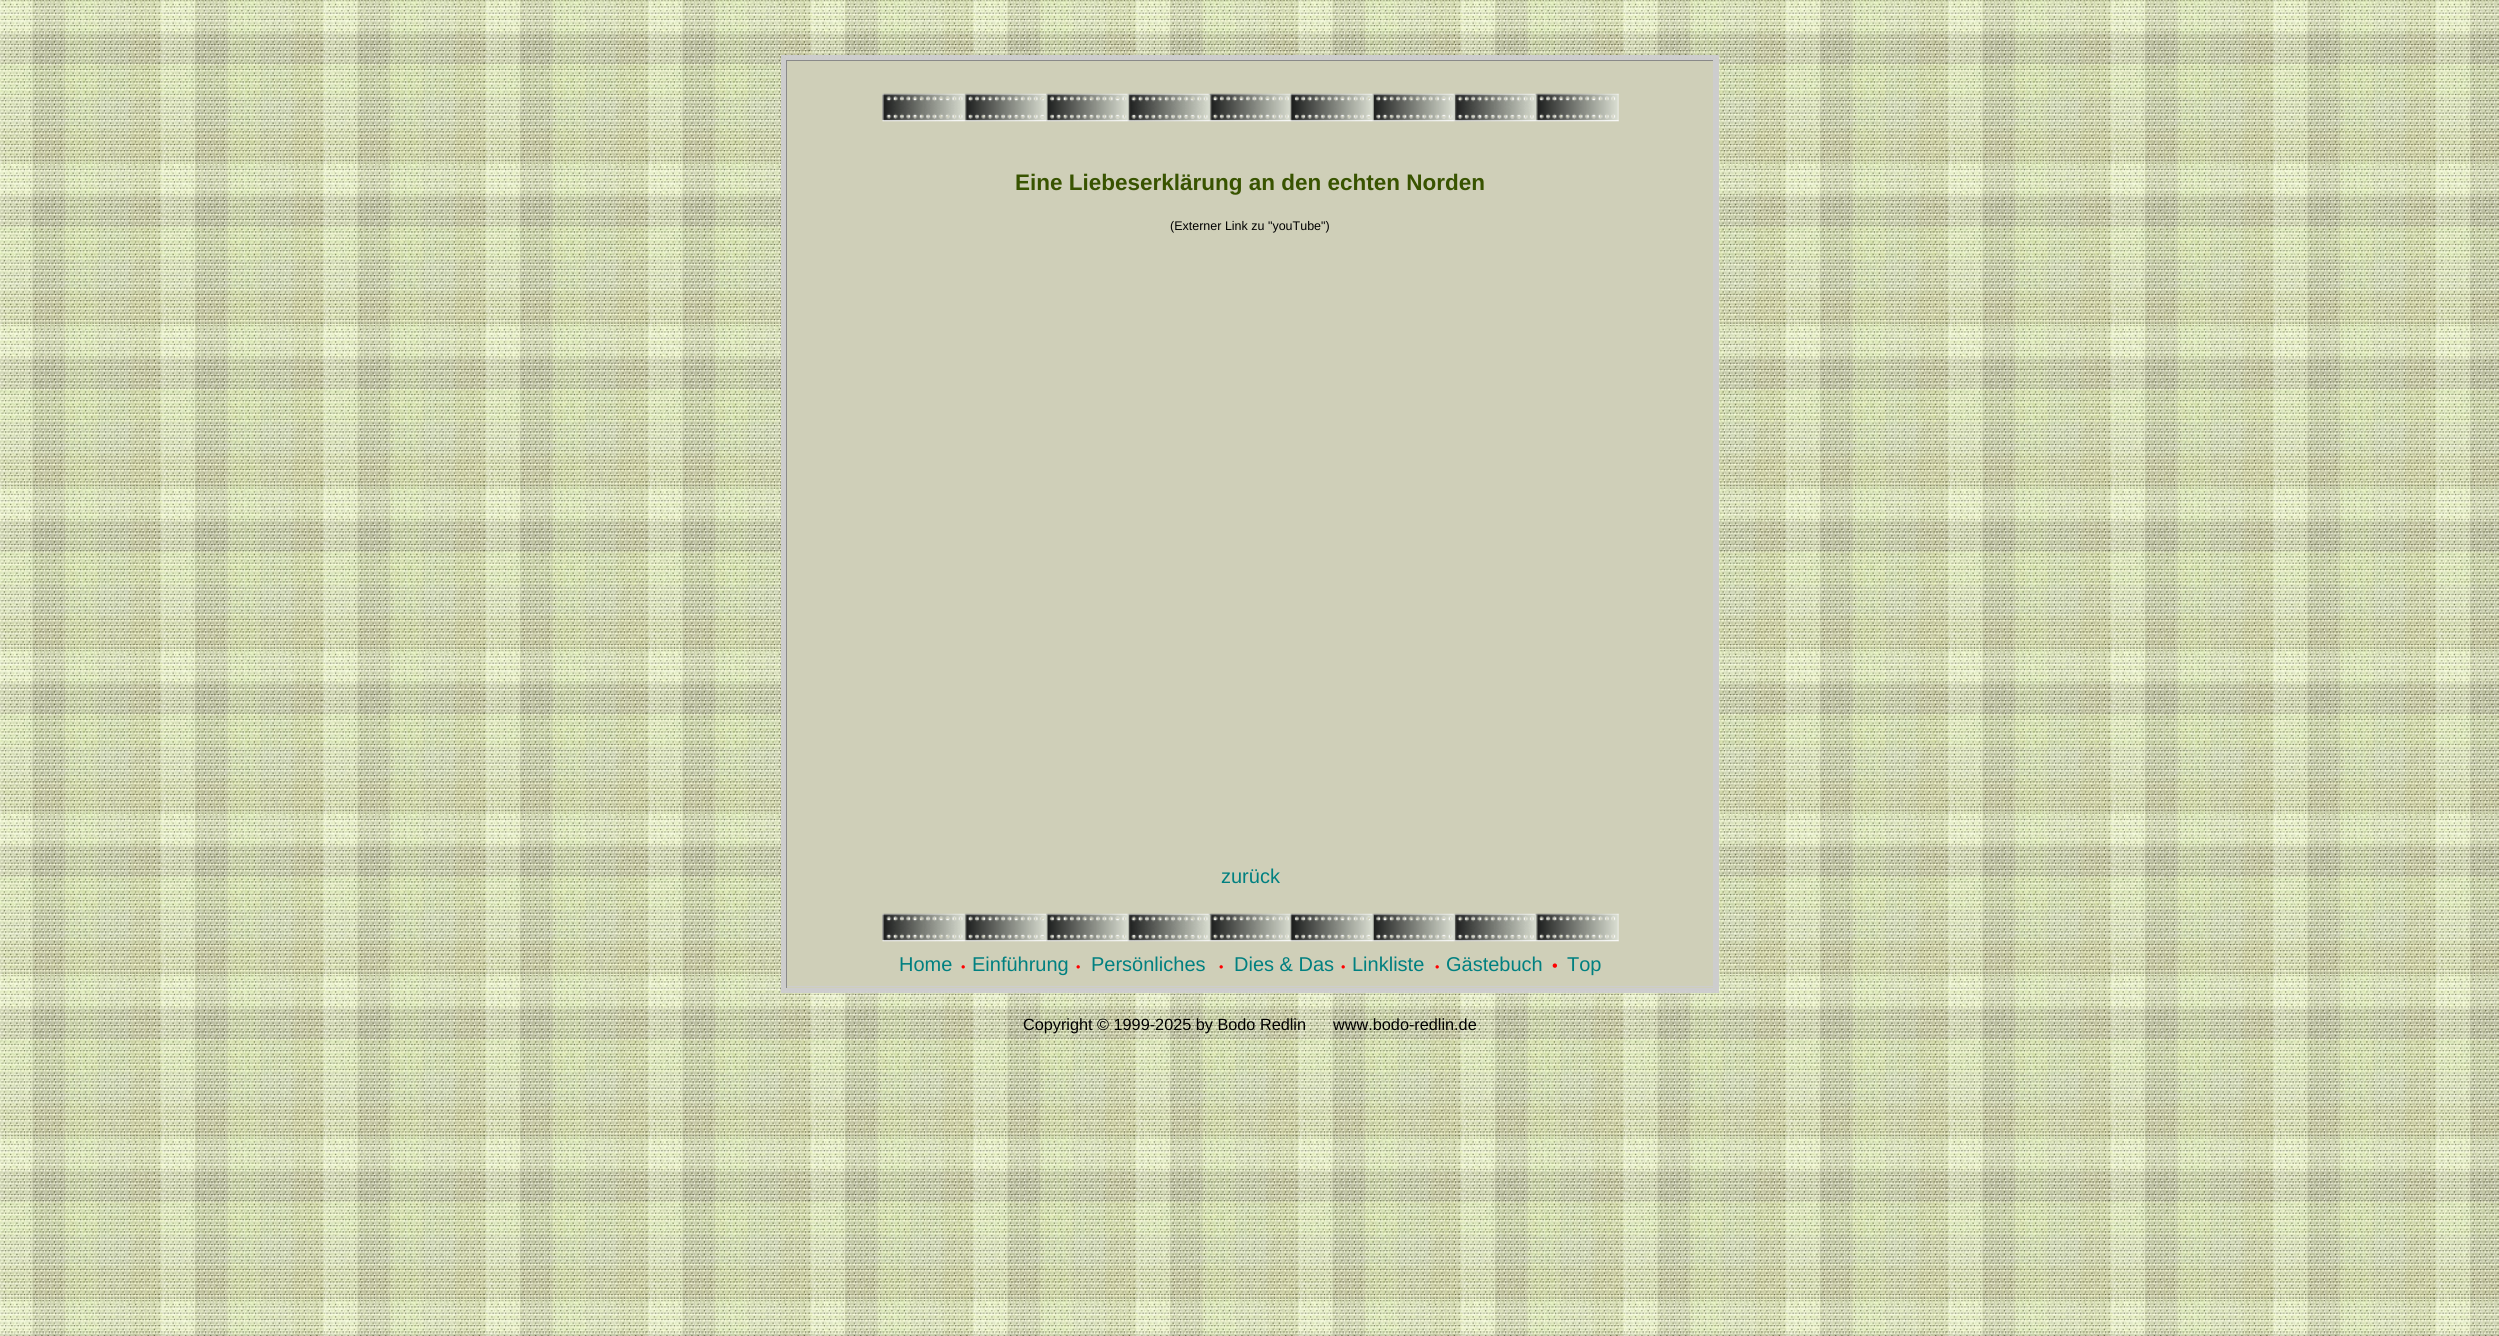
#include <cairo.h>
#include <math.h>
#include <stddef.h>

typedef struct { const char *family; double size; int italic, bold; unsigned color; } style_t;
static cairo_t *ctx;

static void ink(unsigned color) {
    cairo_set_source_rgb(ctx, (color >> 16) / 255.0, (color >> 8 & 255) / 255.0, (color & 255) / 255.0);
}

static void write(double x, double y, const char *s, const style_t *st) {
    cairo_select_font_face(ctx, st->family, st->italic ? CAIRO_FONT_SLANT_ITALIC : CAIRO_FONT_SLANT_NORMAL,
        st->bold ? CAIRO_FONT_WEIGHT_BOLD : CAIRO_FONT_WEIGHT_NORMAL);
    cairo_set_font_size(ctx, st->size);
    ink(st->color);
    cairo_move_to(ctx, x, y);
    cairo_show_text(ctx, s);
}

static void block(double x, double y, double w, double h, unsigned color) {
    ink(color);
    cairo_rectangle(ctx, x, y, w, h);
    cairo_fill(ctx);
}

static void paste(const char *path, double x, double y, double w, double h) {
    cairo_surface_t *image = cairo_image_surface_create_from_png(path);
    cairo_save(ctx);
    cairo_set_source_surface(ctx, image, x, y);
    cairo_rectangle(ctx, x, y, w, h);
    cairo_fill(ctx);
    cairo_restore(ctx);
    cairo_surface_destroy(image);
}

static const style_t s1 = {"Liberation Sans", 22.5, 0, 1, 0x385300};
static const style_t s2 = {"Liberation Sans", 12.5, 0, 0, 0x000000};
static const style_t s3 = {"Liberation Sans", 20, 0, 0, 0x008080};
static const style_t s4 = {"Liberation Serif", 12.5, 0, 1, 0xff0000};
static const style_t s5 = {"Liberation Serif", 16.25, 0, 1, 0xff0000};
static const style_t s6 = {"Liberation Sans", 16.25, 0, 0, 0x000000};

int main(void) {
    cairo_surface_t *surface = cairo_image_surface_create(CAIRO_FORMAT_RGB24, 2499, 1336);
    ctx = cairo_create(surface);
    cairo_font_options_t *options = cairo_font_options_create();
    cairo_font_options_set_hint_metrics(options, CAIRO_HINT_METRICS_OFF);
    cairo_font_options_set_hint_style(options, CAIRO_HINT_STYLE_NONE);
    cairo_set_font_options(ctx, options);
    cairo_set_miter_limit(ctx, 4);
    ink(0xffffff);
    cairo_paint(ctx);
    paste("pic1.png", 0, 0, 2499, 1336);
    block(787, 61, 926, 927, 0xcfcfb8);
    cairo_rectangle(ctx, 783.5, 57.5, 933, 933);
    ink(0xcdcdcd);
    cairo_set_line_width(ctx, 5);
    cairo_stroke(ctx);
    block(786, 60, 928, 1, 0x898989);
    block(1713, 60, 1, 928, 0xcdcdcd);
    block(786, 986, 928, 1, 0xcdcdcd);
    block(786, 60, 1, 928, 0x898989);
    paste("pic2.png", 882, 93, 737, 29);
    write(1015, 190, "Eine Liebeserklärung an den echten Norden", &s1);
    write(1170, 230, "(Externer Link zu \"youTube\")", &s2);
    write(1221, 883, "zurück", &s3);
    paste("pic2.png", 882, 913, 737, 29);
    write(899, 971, "Home", &s3);
    write(961, 971, "•", &s4);
    write(972, 971, "Einführung", &s3);
    write(1076, 971, "•", &s4);
    write(1091, 971, "Persönliches", &s3);
    write(1219, 971, "•", &s4);
    write(1234, 971, "Dies & Das", &s3);
    write(1341, 971, "•", &s4);
    write(1352, 971, "Linkliste", &s3);
    write(1435, 971, "•", &s4);
    write(1446, 971, "Gästebuch", &s3);
    write(1552, 971, "•", &s5);
    write(1567, 971, "Top", &s3);
    write(1023, 1030, "Copyright © 1999-2025 by Bodo Redlin      www.bodo-redlin.de", &s6);
    cairo_surface_write_to_png(surface, "screenshot.png");
    cairo_font_options_destroy(options);
    cairo_destroy(ctx);
    cairo_surface_destroy(surface);
    return 0;
}
